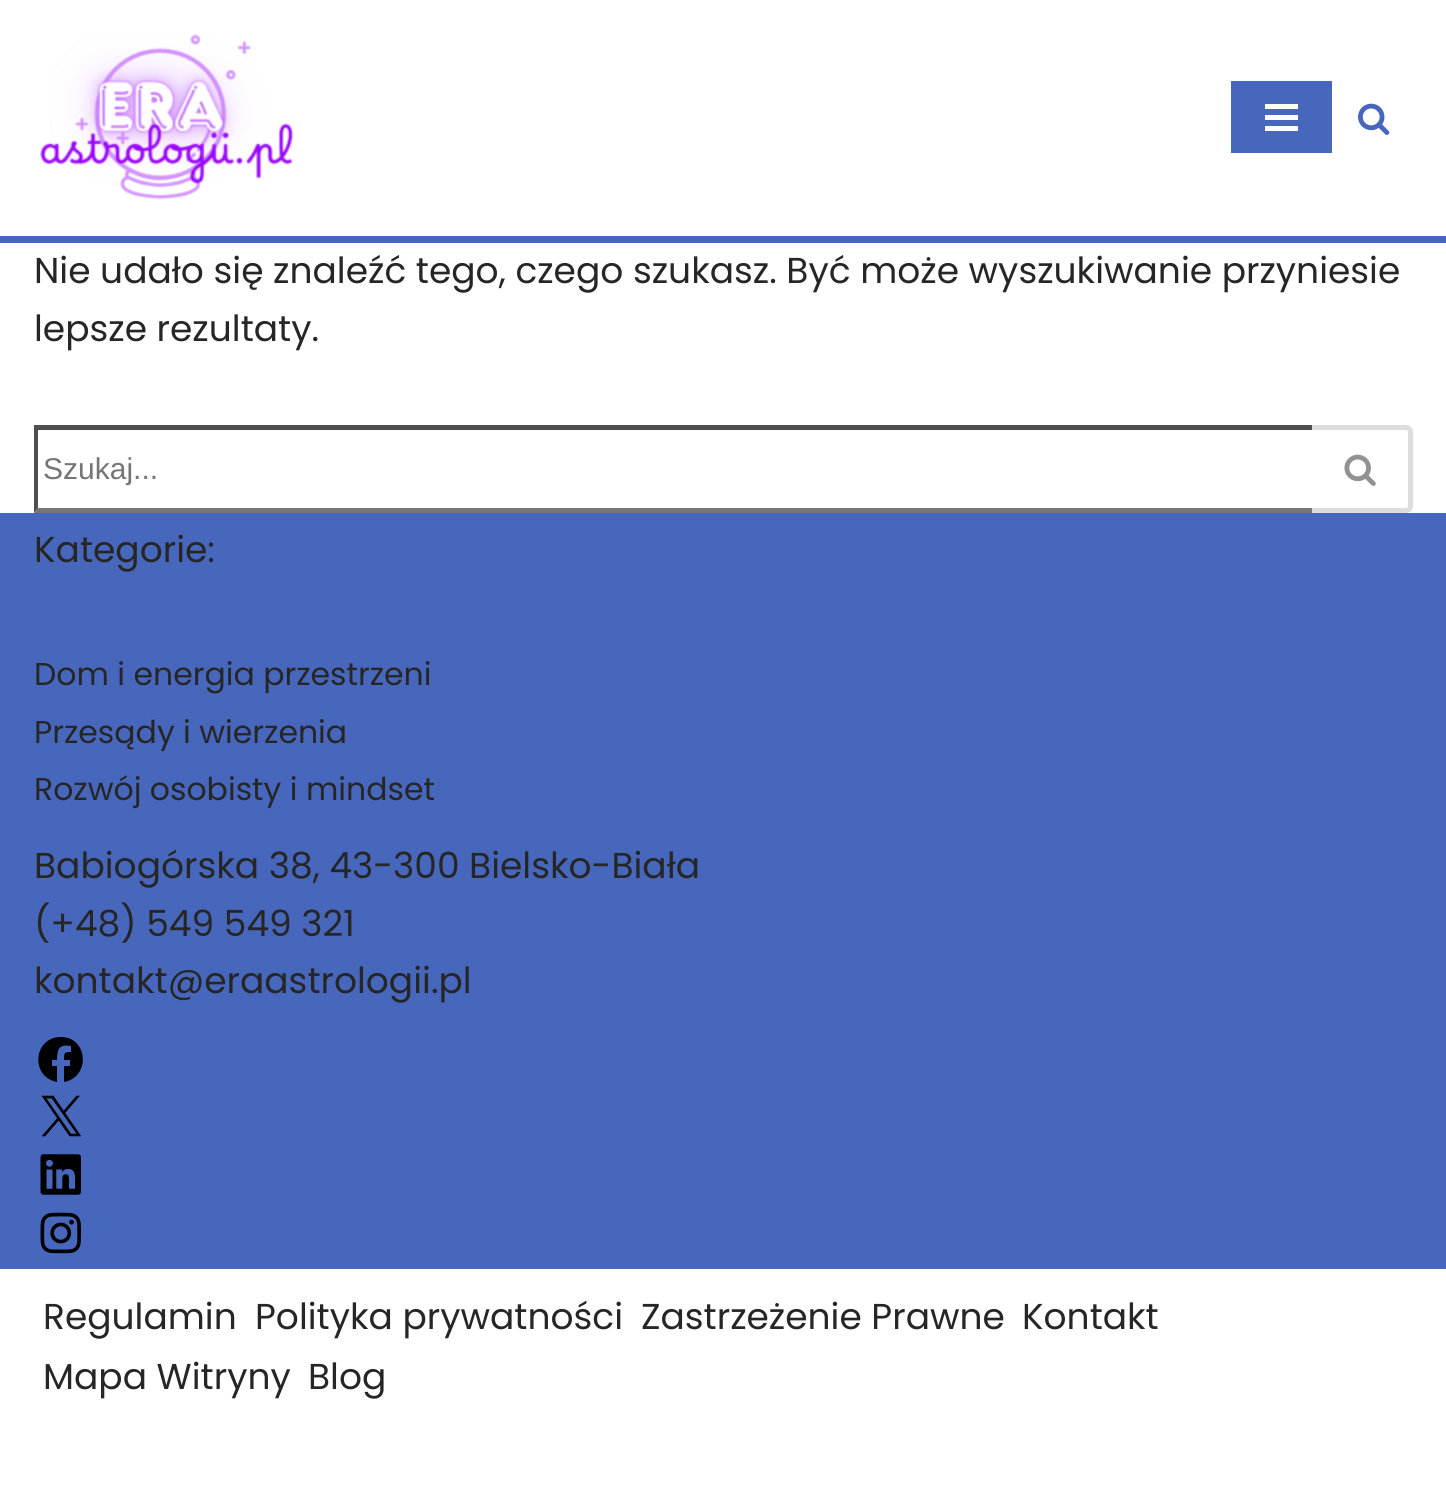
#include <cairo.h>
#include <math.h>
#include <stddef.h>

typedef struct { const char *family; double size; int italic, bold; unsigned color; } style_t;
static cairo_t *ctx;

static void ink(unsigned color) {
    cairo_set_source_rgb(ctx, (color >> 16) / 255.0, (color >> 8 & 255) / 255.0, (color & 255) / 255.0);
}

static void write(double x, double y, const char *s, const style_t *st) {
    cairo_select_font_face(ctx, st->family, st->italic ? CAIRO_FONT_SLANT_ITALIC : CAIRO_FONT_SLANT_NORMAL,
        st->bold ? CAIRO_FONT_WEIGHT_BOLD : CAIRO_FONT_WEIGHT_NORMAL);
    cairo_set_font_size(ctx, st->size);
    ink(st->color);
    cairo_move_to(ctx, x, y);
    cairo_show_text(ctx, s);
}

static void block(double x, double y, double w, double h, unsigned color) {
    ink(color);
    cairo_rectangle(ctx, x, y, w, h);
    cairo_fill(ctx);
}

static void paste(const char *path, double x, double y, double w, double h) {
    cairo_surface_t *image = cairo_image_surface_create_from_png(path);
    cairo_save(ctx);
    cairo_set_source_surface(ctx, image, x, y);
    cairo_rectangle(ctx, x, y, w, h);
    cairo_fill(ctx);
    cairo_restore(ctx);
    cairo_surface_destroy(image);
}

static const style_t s1 = {"Poppins", 36, 0, 0, 0x272626};
static const style_t s2 = {"Liberation Sans", 30, 0, 0, 0x757575};
static const style_t s3 = {"Poppins", 31.5, 0, 0, 0x272626};

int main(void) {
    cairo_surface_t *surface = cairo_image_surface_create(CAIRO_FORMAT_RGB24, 1446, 1488);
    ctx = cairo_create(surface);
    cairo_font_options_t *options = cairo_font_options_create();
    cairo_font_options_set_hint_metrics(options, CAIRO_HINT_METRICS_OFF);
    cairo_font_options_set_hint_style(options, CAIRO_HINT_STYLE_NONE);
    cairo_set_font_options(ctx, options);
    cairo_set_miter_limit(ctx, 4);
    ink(0xffffff);
    cairo_paint(ctx);
    block(0, 236, 1446, 7, 0x4767bd);
    paste("pic1.png", 40, 34, 254, 166);
    block(1231, 81, 101, 72, 0x4767bd);
    block(1265, 104, 33, 5, 0xffffff);
    block(1265, 115, 33, 5, 0xffffff);
    block(1265, 126, 33, 5, 0xffffff);
    paste("pic2.png", 1358, 103, 32, 32);
    write(34, 283, "Nie udało się znaleźć tego, czego szukasz. Być może wyszukiwanie przyniesie", &s1);
    write(34, 341, "lepsze rezultaty.", &s1);
    block(34, 425, 1278, 5, 0x4f4f4f);
    ink(0x767676);
    cairo_new_path(ctx);
    cairo_move_to(ctx, 1312, 513);
    cairo_line_to(ctx, 34, 513);
    cairo_line_to(ctx, 38, 508);
    cairo_line_to(ctx, 1312, 508);
    cairo_close_path(ctx);
    cairo_fill(ctx);
    ink(0x4f4f4f);
    cairo_new_path(ctx);
    cairo_move_to(ctx, 34, 513);
    cairo_line_to(ctx, 34, 425);
    cairo_line_to(ctx, 38, 430);
    cairo_line_to(ctx, 38, 508);
    cairo_close_path(ctx);
    cairo_fill(ctx);
    write(43, 479, "Szukaj...", &s2);
    ink(0xdddddd);
    cairo_set_fill_rule(ctx, CAIRO_FILL_RULE_EVEN_ODD);
    cairo_new_path(ctx);
    cairo_move_to(ctx, 1312, 425);
    cairo_line_to(ctx, 1406, 425);
    cairo_curve_to(ctx, 1410, 425, 1413, 428, 1413, 432);
    cairo_line_to(ctx, 1413, 506);
    cairo_curve_to(ctx, 1413, 510, 1410, 513, 1406, 513);
    cairo_line_to(ctx, 1312, 513);
    cairo_close_path(ctx);
    cairo_move_to(ctx, 1312, 430);
    cairo_line_to(ctx, 1406, 430);
    cairo_curve_to(ctx, 1407, 430, 1408, 431, 1408, 432);
    cairo_line_to(ctx, 1408, 506);
    cairo_curve_to(ctx, 1408, 507, 1407, 508, 1406, 508);
    cairo_line_to(ctx, 1312, 508);
    cairo_close_path(ctx);
    cairo_fill(ctx);
    paste("pic3.png", 1344, 454, 32, 32);
    block(0, 513, 1446, 756, 0x4767bd);
    write(34, 562, "Kategorie:", &s1);
    write(34, 685, "Dom i energia przestrzeni", &s3);
    write(34, 743, "Przesądy i wierzenia", &s3);
    write(34, 800, "Rozwój osobisty i mindset", &s3);
    write(34, 878, "Babiogórska 38, 43-300 Bielsko-Biała", &s1);
    write(34, 936, "(+48) 549 549 321", &s1);
    write(34, 993, "kontakt@eraastrologii.pl", &s1);
    ink(0x000000);
    cairo_set_fill_rule(ctx, CAIRO_FILL_RULE_WINDING);
    cairo_new_path(ctx);
    cairo_move_to(ctx, 61, 1037);
    cairo_curve_to(ctx, 33, 1037, 30, 1077, 57, 1082);
    cairo_line_to(ctx, 57, 1066);
    cairo_line_to(ctx, 52, 1066);
    cairo_line_to(ctx, 52, 1060);
    cairo_line_to(ctx, 57, 1060);
    cairo_curve_to(ctx, 57, 1049, 59, 1044, 71, 1046);
    cairo_line_to(ctx, 71, 1052);
    cairo_curve_to(ctx, 64, 1052, 64, 1053, 64, 1060);
    cairo_line_to(ctx, 70, 1060);
    cairo_line_to(ctx, 70, 1066);
    cairo_line_to(ctx, 64, 1066);
    cairo_line_to(ctx, 64, 1082);
    cairo_curve_to(ctx, 91, 1077, 88, 1037, 61, 1037);
    cairo_close_path(ctx);
    cairo_fill(ctx);
    paste("pic4.png", 41, 1095, 41, 42);
    paste("pic5.png", 40, 1154, 41, 41);
    paste("pic6.png", 40, 1212, 41, 42);
    write(43, 1329, "Regulamin", &s1);
    write(255, 1329, "Polityka prywatności", &s1);
    write(641, 1329, "Zastrzeżenie Prawne", &s1);
    write(1022, 1329, "Kontakt", &s1);
    write(43, 1389, "Mapa Witryny", &s1);
    write(308, 1389, "Blog", &s1);
    cairo_surface_write_to_png(surface, "screenshot.png");
    cairo_font_options_destroy(options);
    cairo_destroy(ctx);
    cairo_surface_destroy(surface);
    return 0;
}
